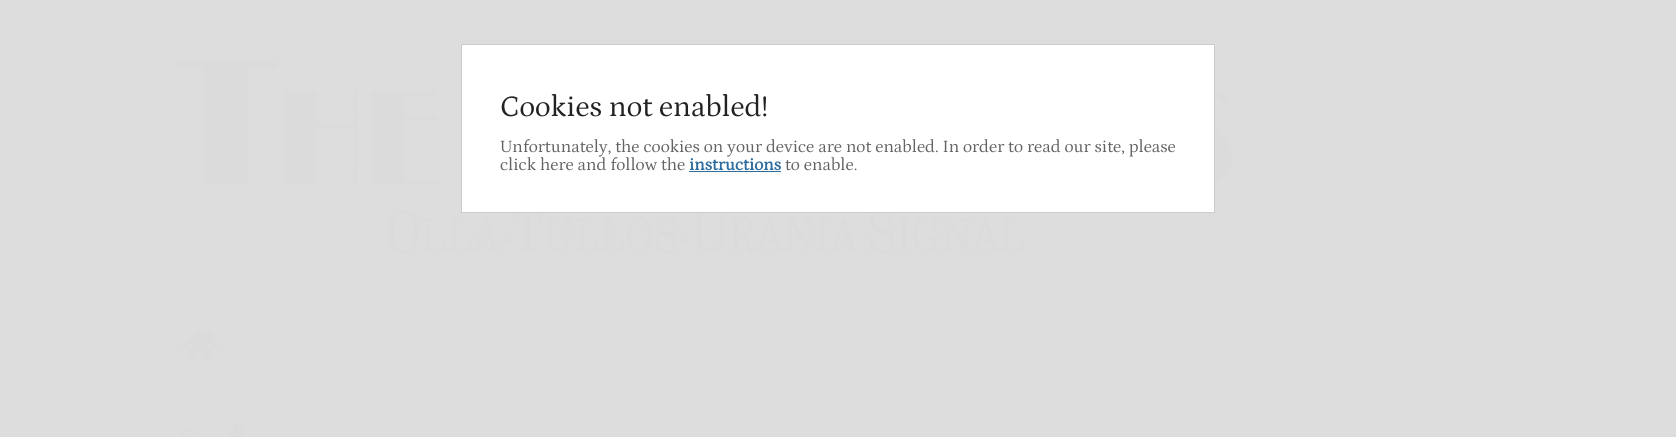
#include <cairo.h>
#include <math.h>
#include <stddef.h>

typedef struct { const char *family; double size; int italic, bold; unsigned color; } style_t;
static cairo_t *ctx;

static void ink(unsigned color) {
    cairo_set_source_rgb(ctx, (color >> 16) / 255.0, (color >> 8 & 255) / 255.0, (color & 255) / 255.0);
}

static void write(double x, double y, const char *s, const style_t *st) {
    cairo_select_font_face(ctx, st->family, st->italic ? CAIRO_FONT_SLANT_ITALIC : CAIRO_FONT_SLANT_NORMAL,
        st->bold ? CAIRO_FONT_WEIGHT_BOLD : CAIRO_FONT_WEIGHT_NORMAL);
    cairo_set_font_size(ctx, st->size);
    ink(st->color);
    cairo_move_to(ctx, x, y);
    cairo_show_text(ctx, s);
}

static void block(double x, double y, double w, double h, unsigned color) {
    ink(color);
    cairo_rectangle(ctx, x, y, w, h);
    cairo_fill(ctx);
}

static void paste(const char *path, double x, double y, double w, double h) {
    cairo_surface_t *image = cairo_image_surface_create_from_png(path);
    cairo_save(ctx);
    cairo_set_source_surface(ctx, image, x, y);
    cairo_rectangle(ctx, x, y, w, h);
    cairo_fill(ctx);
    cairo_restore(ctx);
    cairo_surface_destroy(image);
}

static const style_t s1 = {"Petrona", 30, 0, 0, 0x222222};
static const style_t s2 = {"Petrona", 17.5, 0, 0, 0x636363};
static const style_t s3 = {"Petrona", 17.5, 0, 1, 0x2e6d9d};

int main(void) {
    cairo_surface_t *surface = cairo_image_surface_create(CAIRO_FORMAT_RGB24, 1676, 437);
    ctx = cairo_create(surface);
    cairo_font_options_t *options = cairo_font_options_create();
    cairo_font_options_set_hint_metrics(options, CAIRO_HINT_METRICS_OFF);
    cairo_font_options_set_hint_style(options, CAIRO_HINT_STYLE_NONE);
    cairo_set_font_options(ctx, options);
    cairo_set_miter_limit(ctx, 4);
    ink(0xdddddd);
    cairo_paint(ctx);
    paste("pic1.png", 174, 60, 1059, 194);
    paste("pic2.png", 181, 332, 38, 30);
    paste("pic3.png", 180, 428, 17, 9);
    paste("pic4.png", 229, 423, 14, 14);
    ink(0xffffff);
    cairo_rectangle(ctx, 461.5, 44.5, 753, 168);
    cairo_fill_preserve(ctx);
    ink(0xcccccc);
    cairo_set_line_width(ctx, 1);
    cairo_stroke(ctx);
    write(500, 116, "Cookies not enabled!", &s1);
    write(500, 152, "Unfortunately, the cookies on your device are not enabled. In order to read our site, please", &s2);
    write(500, 170, "click here and follow the", &s2);
    write(689, 170, "instructions", &s3);
    block(689, 171, 92, 1, 0x2e6d9d);
    write(785, 170, "to enable.", &s2);
    cairo_surface_write_to_png(surface, "screenshot.png");
    cairo_font_options_destroy(options);
    cairo_destroy(ctx);
    cairo_surface_destroy(surface);
    return 0;
}
